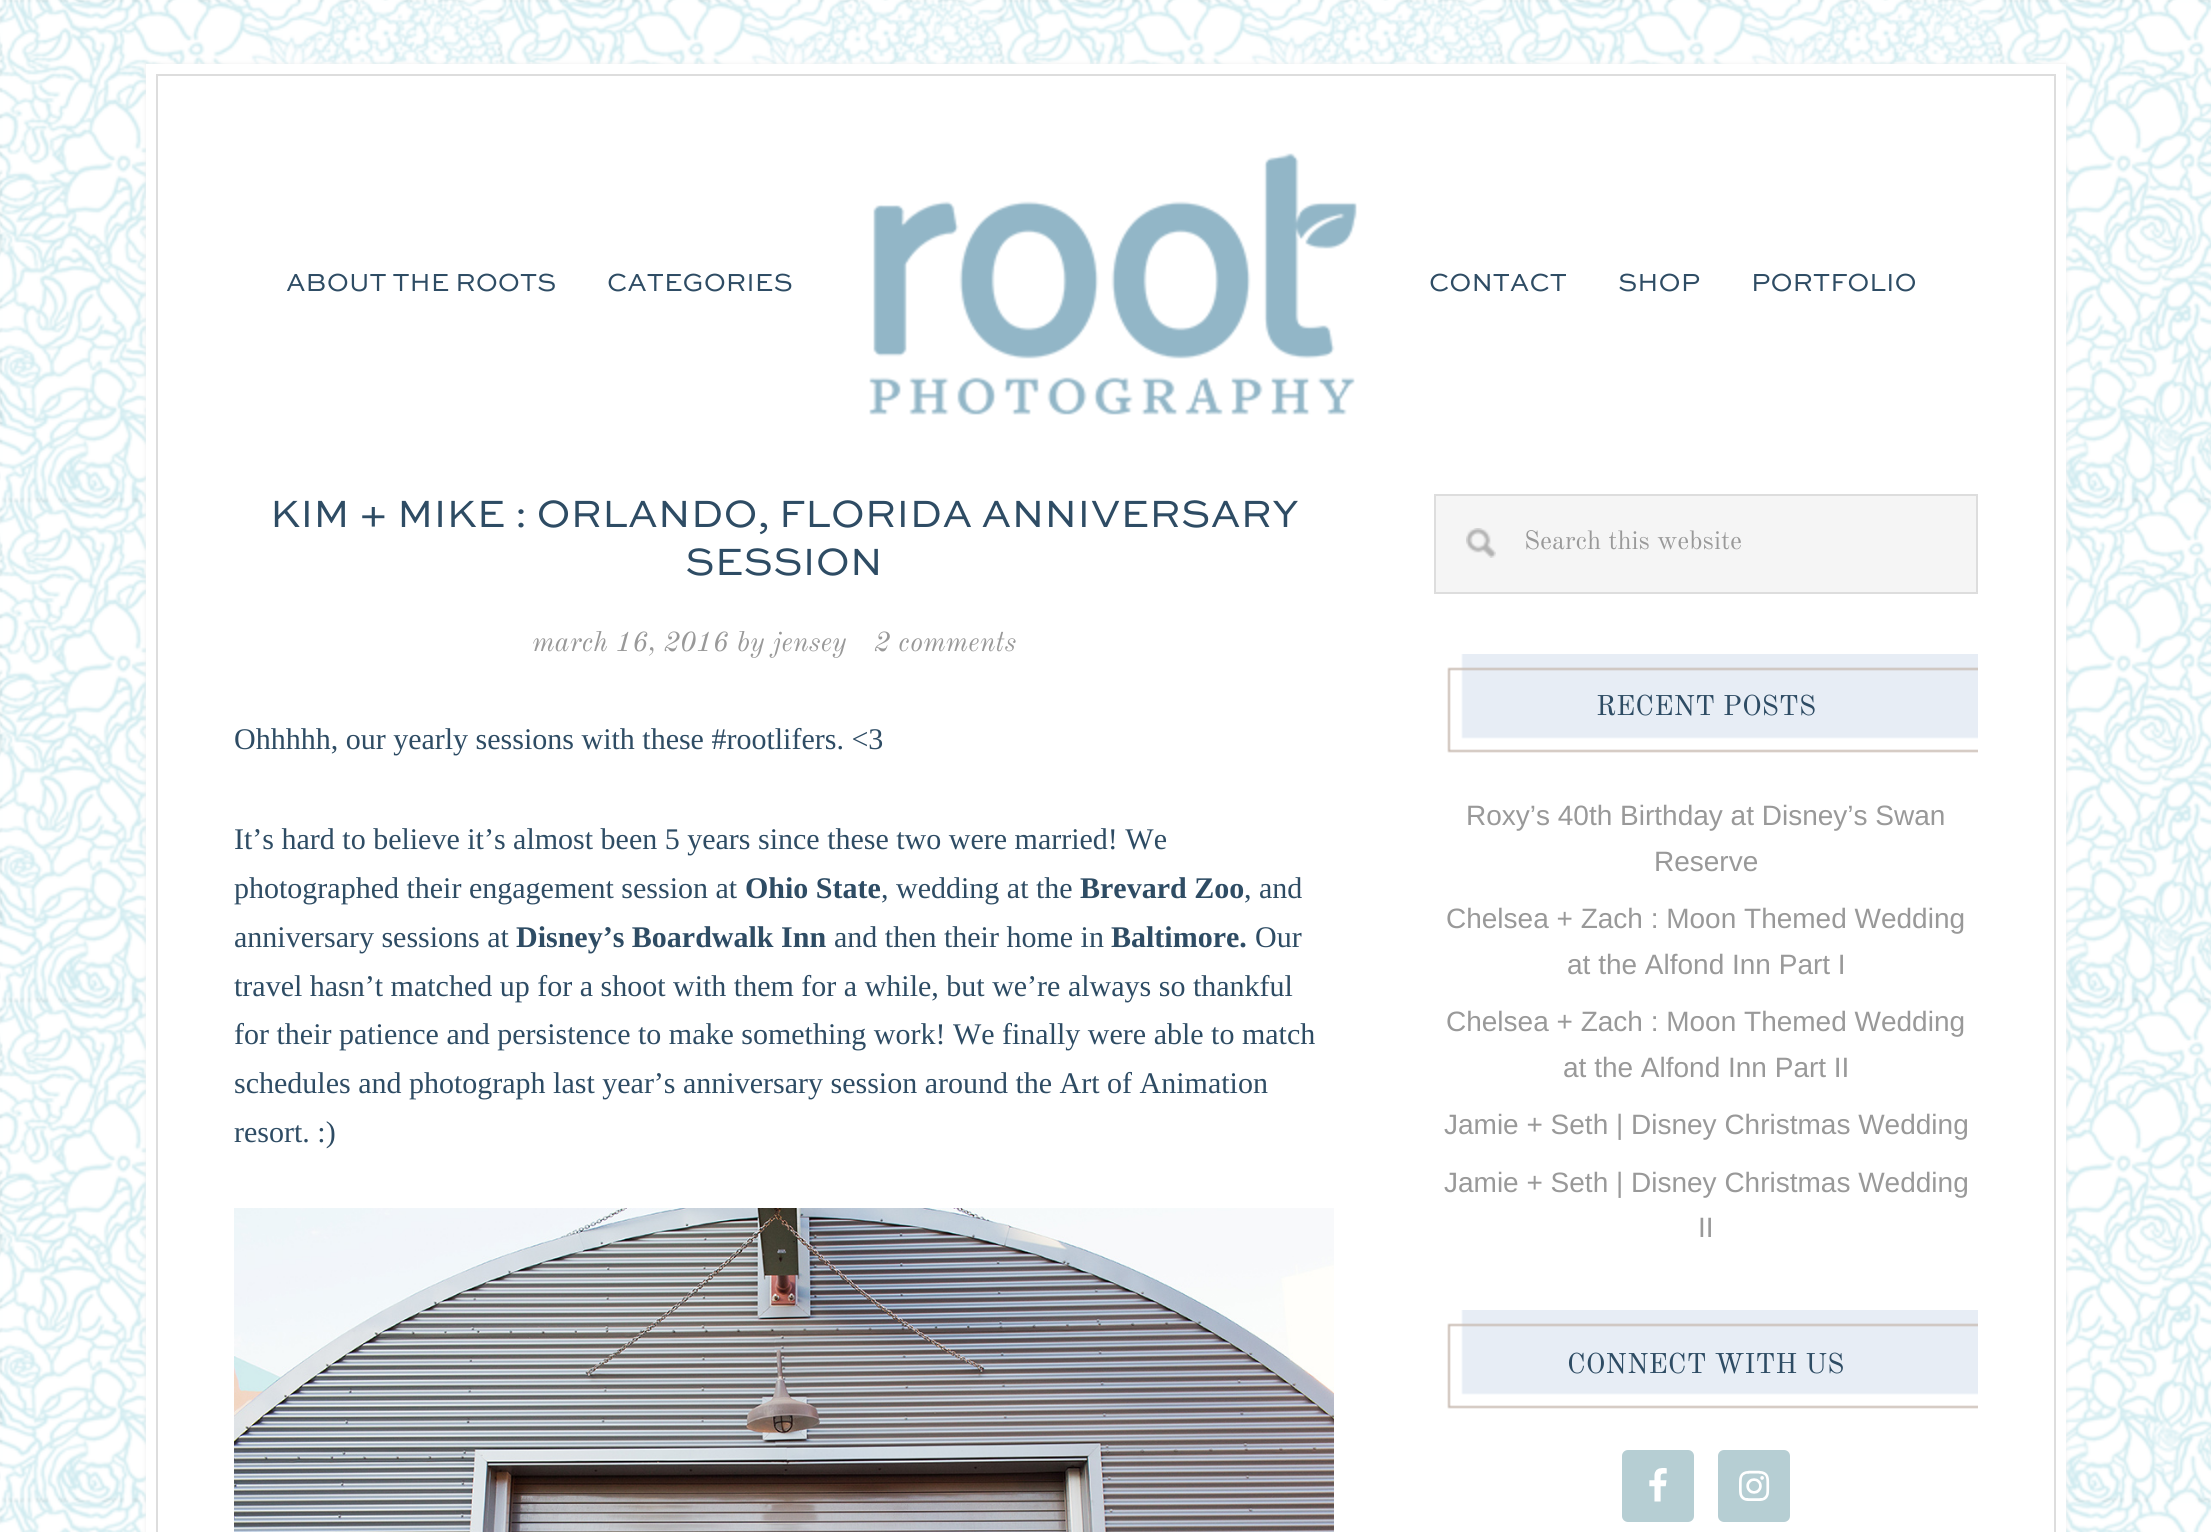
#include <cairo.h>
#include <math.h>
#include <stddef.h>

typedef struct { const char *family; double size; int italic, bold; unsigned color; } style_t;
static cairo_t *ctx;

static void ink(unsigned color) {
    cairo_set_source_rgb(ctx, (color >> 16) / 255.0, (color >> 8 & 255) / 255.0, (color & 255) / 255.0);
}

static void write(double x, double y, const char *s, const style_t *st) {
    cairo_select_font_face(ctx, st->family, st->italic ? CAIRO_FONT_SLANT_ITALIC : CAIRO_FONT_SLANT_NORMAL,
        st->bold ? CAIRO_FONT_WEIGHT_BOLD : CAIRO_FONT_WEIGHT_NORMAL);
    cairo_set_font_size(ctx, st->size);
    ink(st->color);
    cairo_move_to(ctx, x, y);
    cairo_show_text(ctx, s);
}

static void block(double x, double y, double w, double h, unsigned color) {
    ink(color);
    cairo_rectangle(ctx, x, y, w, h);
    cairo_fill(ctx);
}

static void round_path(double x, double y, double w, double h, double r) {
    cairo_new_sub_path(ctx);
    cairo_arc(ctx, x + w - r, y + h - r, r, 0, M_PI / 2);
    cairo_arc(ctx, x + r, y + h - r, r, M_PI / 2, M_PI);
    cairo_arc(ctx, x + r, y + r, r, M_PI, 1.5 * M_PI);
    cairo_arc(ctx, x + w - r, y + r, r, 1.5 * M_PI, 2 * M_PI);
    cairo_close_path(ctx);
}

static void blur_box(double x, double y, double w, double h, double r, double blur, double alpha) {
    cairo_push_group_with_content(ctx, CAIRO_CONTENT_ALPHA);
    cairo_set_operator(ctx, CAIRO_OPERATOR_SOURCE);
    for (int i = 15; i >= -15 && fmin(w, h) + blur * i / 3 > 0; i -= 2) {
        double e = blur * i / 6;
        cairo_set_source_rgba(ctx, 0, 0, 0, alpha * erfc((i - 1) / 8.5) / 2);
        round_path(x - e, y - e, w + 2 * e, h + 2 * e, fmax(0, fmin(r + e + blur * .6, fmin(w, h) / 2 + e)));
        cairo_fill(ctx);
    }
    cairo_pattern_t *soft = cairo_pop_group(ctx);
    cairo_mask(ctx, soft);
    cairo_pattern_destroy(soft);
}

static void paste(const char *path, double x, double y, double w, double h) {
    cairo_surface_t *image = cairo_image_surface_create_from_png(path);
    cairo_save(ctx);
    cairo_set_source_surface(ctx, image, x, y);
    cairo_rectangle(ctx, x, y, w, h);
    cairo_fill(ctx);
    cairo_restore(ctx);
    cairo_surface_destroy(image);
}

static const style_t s1 = {"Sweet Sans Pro", 26, 0, 0, 0x2e4c64};
static const style_t s2 = {"Sweet Sans Pro", 40, 0, 0, 0x2e4c64};
static const style_t s3 = {"Old Standard TT", 28, 1, 0, 0x999999};
static const style_t s4 = {"Liberation Serif", 30, 0, 0, 0x2e4c64};
static const style_t s5 = {"Liberation Serif", 30, 0, 1, 0x2e4c64};
static const style_t s6 = {"Old Standard TT", 26, 0, 0, 0x999999};
static const style_t s7 = {"Old Standard TT", 28, 0, 0, 0x2e4c64};
static const style_t s8 = {"Liberation Sans", 28, 0, 0, 0x999999};

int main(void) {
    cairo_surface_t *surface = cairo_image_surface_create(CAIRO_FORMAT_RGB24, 2211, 1532);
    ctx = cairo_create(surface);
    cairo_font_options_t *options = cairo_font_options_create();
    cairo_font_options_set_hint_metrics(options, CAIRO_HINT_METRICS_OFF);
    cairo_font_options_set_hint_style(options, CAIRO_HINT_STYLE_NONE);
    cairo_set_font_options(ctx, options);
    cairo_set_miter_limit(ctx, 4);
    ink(0xffffff);
    cairo_paint(ctx);
    paste("pic1.png", 0, 0, 2211, 1532);
    ink(0xeeeeee);
    blur_box(146, 64, 1920, 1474, 0, 2, 1);
    block(146, 64, 1920, 1468, 0xffffff);
    cairo_rectangle(ctx, 157, 75, 1898, 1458);
    ink(0xdddddd);
    cairo_stroke(ctx);
    write(286, 291, "ABOUT THE ROOTS", &s1);
    write(607, 291, "CATEGORIES", &s1);
    paste("pic2.png", 869, 153, 488, 262);
    write(1429, 291, "CONTACT", &s1);
    write(1618, 291, "SHOP", &s1);
    write(1751, 291, "PORTFOLIO", &s1);
    write(270, 527, "KIM + MIKE : ORLANDO, FLORIDA ANNIVERSARY", &s2);
    write(685, 575, "SESSION", &s2);
    write(532, 651, "march 16, 2016 by jensey", &s3);
    write(874, 651, "2 comments", &s3);
    write(234, 749, "Ohhhhh, our yearly sessions with these #rootlifers. <3", &s4);
    write(234, 849, "It’s hard to believe it’s almost been 5 years since these two were married! We", &s4);
    write(234, 898, "photographed their engagement session at", &s4);
    write(745, 898, "Ohio State", &s5);
    write(881, 898, ", wedding at the", &s4);
    write(1080, 898, "Brevard Zoo", &s5);
    write(1244, 898, ", and", &s4);
    write(234, 947, "anniversary sessions at", &s4);
    write(516, 947, "Disney’s Boardwalk Inn", &s5);
    write(834, 947, "and then their home in", &s4);
    write(1111, 947, "Baltimore.", &s5);
    write(1255, 947, "Our", &s4);
    write(234, 996, "travel hasn’t matched up for a shoot with them for a while, but we’re always so thankful", &s4);
    write(234, 1044, "for their patience and persistence to make something work! We finally were able to match", &s4);
    write(234, 1093, "schedules and photograph last year’s anniversary session around the Art of Animation", &s4);
    write(234, 1142, "resort. :)", &s4);
    paste("pic3.png", 234, 1208, 1100, 324);
    block(1436, 496, 540, 96, 0xf5f5f5);
    paste("pic4.png", 1466, 528, 30, 30);
    cairo_rectangle(ctx, 1435, 495, 542, 98);
    ink(0xdddddd);
    cairo_stroke(ctx);
    write(1524, 549, "Search this website", &s6);
    paste("pic5.png", 1447, 654, 531, 99);
    write(1596, 715, "RECENT POSTS", &s7);
    write(1466, 825, "Roxy’s 40th Birthday at Disney’s Swan", &s8);
    write(1654, 871, "Reserve", &s8);
    write(1446, 928, "Chelsea + Zach : Moon Themed Wedding", &s8);
    write(1567, 974, "at the Alfond Inn Part I", &s8);
    write(1446, 1031, "Chelsea + Zach : Moon Themed Wedding", &s8);
    write(1563, 1077, "at the Alfond Inn Part II", &s8);
    write(1444, 1134, "Jamie + Seth | Disney Christmas Wedding", &s8);
    write(1444, 1192, "Jamie + Seth | Disney Christmas Wedding", &s8);
    write(1698, 1237, "II", &s8);
    paste("pic5.png", 1447, 1310, 531, 99);
    write(1567, 1373, "CONNECT WITH US", &s7);
    ink(0xb6ced3);
    round_path(1622, 1450, 72, 72, 6);
    cairo_fill(ctx);
    paste("pic6.png", 1649, 1468, 18, 34);
    round_path(1718, 1450, 72, 72, 6);
    cairo_fill(ctx);
    paste("pic7.png", 1739, 1470, 31, 31);
    cairo_surface_write_to_png(surface, "screenshot.png");
    cairo_font_options_destroy(options);
    cairo_destroy(ctx);
    cairo_surface_destroy(surface);
    return 0;
}
